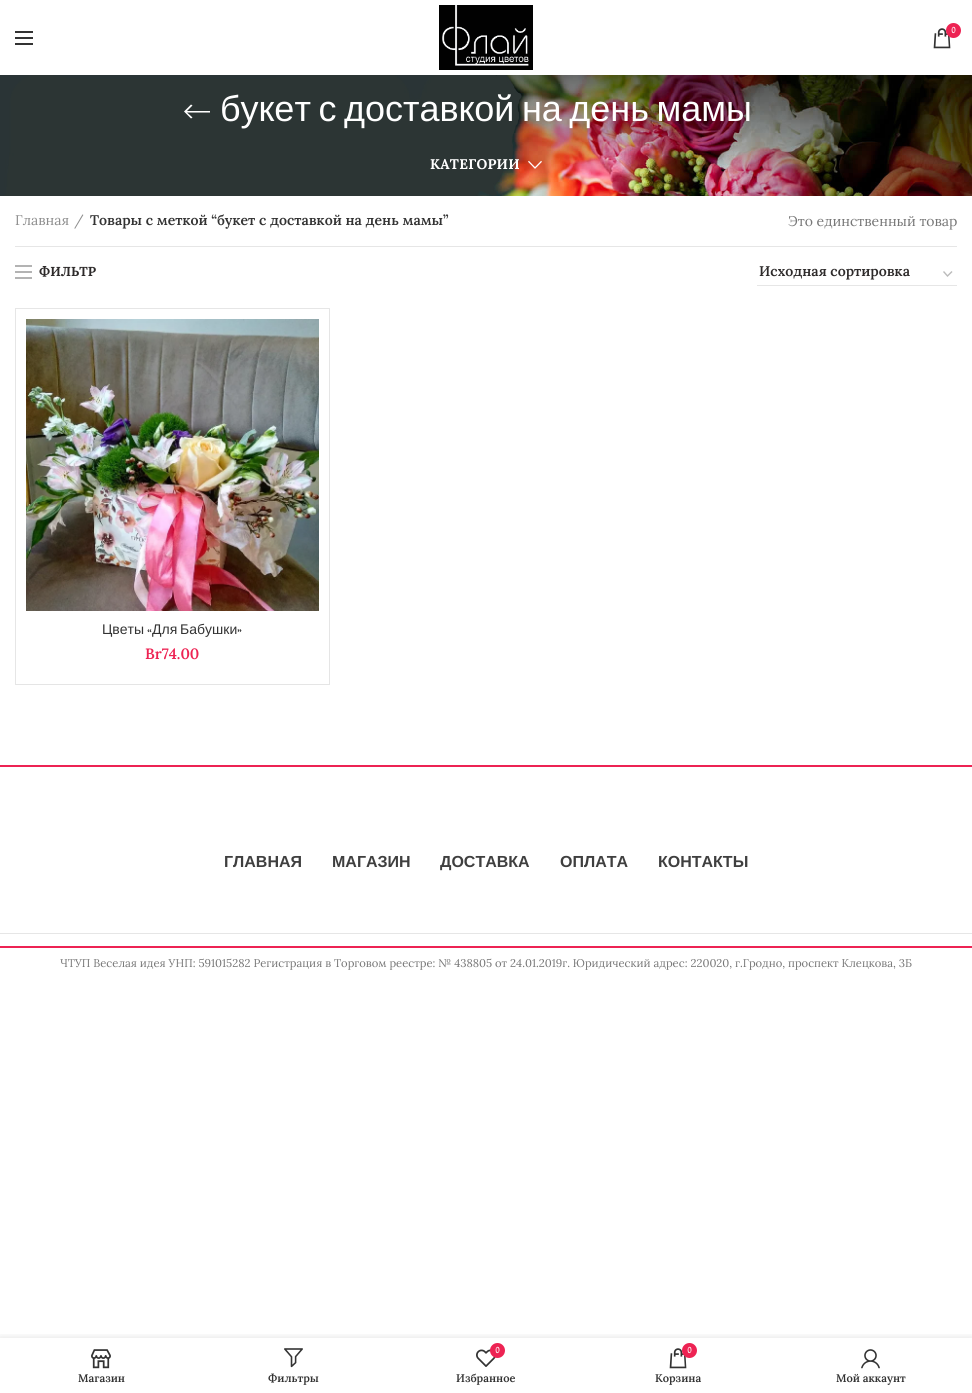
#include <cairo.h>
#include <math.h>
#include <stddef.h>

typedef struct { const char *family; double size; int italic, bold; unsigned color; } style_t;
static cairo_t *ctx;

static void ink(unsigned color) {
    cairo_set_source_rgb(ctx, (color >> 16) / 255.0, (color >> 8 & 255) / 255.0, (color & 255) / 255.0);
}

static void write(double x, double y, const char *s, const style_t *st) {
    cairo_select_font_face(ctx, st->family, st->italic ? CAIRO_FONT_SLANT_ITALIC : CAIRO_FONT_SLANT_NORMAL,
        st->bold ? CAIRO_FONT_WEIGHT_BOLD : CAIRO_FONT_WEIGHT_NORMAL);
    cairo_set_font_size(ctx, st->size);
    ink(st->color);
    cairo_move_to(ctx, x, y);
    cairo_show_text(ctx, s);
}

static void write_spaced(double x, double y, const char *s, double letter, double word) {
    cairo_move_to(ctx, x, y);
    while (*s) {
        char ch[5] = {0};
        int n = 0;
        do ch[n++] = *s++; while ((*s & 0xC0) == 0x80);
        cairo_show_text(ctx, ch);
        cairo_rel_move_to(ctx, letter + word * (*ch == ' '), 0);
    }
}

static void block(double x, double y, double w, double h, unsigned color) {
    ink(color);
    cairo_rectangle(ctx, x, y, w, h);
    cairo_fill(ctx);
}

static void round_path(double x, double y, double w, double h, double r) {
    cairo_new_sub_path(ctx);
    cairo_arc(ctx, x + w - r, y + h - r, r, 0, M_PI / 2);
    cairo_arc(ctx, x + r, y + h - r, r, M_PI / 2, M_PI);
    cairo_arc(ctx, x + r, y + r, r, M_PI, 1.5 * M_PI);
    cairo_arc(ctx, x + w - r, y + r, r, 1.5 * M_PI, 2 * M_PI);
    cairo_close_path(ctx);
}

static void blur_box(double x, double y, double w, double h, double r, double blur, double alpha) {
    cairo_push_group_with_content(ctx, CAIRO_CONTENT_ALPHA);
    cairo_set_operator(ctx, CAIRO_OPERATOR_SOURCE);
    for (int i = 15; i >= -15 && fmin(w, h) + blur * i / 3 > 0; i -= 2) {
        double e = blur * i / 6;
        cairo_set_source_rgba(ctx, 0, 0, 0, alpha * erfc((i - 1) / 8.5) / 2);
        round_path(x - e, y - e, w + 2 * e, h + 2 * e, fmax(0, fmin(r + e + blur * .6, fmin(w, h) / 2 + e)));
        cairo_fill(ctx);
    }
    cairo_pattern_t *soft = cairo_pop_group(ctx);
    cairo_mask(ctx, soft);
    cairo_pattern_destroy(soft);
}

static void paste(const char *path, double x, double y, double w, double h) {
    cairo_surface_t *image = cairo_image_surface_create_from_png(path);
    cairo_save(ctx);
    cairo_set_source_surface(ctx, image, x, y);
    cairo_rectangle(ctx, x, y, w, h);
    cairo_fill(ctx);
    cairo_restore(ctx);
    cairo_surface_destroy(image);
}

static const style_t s1 = {"David Libre", 10, 0, 0, 0xffffff};
static const style_t s2 = {"Lora", 14, 0, 0, 0x8e8e8e};
static const style_t s3 = {"Lora SemiBold", 14, 0, 0, 0x333333};
static const style_t s4 = {"Lora", 14, 0, 0, 0x777777};
static const style_t s5 = {"Lora", 13, 0, 1, 0x2d2a2a};
static const style_t s6 = {"Lora SemiBold", 14, 0, 0, 0x2d2a2a};
static const style_t s7 = {"Liberation Sans", 14, 0, 0, 0x333333};
static const style_t s8 = {"David Libre", 14, 0, 0, 0x333333};
static const style_t s9 = {"Lora SemiBold", 15, 0, 0, 0xed2353};
static const style_t s10 = {"Liberation Sans", 16, 0, 1, 0x3f3f3f};
static const style_t s11 = {"Lora", 11.2, 0, 0, 0x777777};
static const style_t s12 = {"Lora SemiBold", 11, 0, 0, 0x333333};

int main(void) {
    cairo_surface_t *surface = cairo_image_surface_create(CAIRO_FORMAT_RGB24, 972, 1393);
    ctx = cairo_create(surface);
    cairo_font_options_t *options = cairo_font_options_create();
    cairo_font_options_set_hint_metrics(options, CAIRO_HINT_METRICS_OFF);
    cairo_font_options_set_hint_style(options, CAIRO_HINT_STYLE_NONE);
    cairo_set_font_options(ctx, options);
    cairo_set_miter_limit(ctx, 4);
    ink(0xffffff);
    cairo_paint(ctx);
    paste("pic1.png", 439, 5, 94, 65);
    paste("pic2.png", 933, 28, 18, 21);
    ink(0xed2353);
    cairo_arc(ctx, 953.5, 30.5, 7.5, 0, 2 * M_PI);
    cairo_fill(ctx);
    write(951, 33, "0", &s1);
    block(15, 37, 18, 2, 0x333333);
    block(15, 31, 18, 2, 0x333333);
    block(15, 43, 18, 2, 0x333333);
    paste("pic3.png", 0, 75, 972, 121);
    ink(0xffffff);
    cairo_new_path(ctx);
    cairo_move_to(ctx, 210, 111);
    cairo_line_to(ctx, 210, 112.5);
    cairo_line_to(ctx, 187, 112.5);
    cairo_line_to(ctx, 192.5, 117.5);
    cairo_line_to(ctx, 191, 118.5);
    cairo_line_to(ctx, 184, 111.5);
    cairo_line_to(ctx, 191, 104.5);
    cairo_line_to(ctx, 192.5, 105.5);
    cairo_line_to(ctx, 187, 111);
    cairo_close_path(ctx);
    cairo_fill(ctx);
    cairo_select_font_face(ctx, "Liberation Sans", CAIRO_FONT_SLANT_NORMAL, CAIRO_FONT_WEIGHT_NORMAL);
    cairo_set_font_size(ctx, 36);
    write_spaced(220, 121, "букет с доставкой на день мамы", 0, -2.5);
    cairo_select_font_face(ctx, "Lora", CAIRO_FONT_SLANT_NORMAL, CAIRO_FONT_WEIGHT_BOLD);
    cairo_set_font_size(ctx, 14);
    write_spaced(430, 169, "КАТЕГОРИИ", 0.25, 0);
    paste("pic4.png", 528, 160, 14, 9);
    block(15, 246, 942, 1, 0xe6e6e6);
    write(15, 225, "Главная", &s2);
    write(74, 225, "/", &s2);
    write(90, 225, "Товары с меткой “букет с доставкой на день мамы”", &s3);
    write(788, 226, "Это единственный товар", &s4);
    block(15, 271, 17, 2, 0xb3b3b3);
    block(15, 265, 17, 2, 0xb3b3b3);
    block(15, 277, 17, 2, 0xb3b3b3);
    write(39, 276, "ФИЛЬТР", &s5);
    cairo_new_path(ctx);
    cairo_move_to(ctx, 943.5, 271.5);
    cairo_line_to(ctx, 947.5, 276);
    cairo_line_to(ctx, 952, 271.5);
    ink(0xbbbbbb);
    cairo_set_line_width(ctx, 1.4);
    cairo_stroke(ctx);
    block(757, 285, 200, 1, 0xe6e6e6);
    write(759, 276, "Исходная сортировка", &s6);
    block(15, 308, 1, 377, 0xe6e6e6);
    cairo_new_path(ctx);
    cairo_move_to(ctx, 16, 308);
    cairo_line_to(ctx, 330, 308);
    cairo_line_to(ctx, 329, 309);
    cairo_line_to(ctx, 16, 309);
    cairo_close_path(ctx);
    cairo_fill(ctx);
    cairo_set_source_rgba(ctx, 0.506, 0.506, 0.506, 0.2);
    cairo_new_path(ctx);
    cairo_move_to(ctx, 330, 308);
    cairo_line_to(ctx, 330, 685);
    cairo_line_to(ctx, 329, 684);
    cairo_line_to(ctx, 329, 309);
    cairo_close_path(ctx);
    cairo_fill(ctx);
    cairo_new_path(ctx);
    cairo_move_to(ctx, 330, 685);
    cairo_line_to(ctx, 16, 685);
    cairo_line_to(ctx, 16, 684);
    cairo_line_to(ctx, 329, 684);
    cairo_close_path(ctx);
    cairo_fill(ctx);
    paste("pic5.png", 26, 319, 293, 292);
    write(102, 634, "Цветы", &s7);
    write(147, 634, "«", &s8);
    cairo_select_font_face(ctx, "Liberation Sans", CAIRO_FONT_SLANT_NORMAL, CAIRO_FONT_WEIGHT_NORMAL);
    write_spaced(152, 634, "Для Бабушки", 0, -1);
    write(237, 634, "»", &s8);
    write(145, 659, "Br74.00", &s9);
    block(0, 765, 972, 2, 0xed2353);
    block(0, 946, 972, 2, 0xed2353);
    write(224, 867, "ГЛАВНАЯ", &s10);
    write(332, 867, "МАГАЗИН", &s10);
    write(440, 867, "ДОСТАВКА", &s10);
    write(560, 867, "ОПЛАТА", &s10);
    write(658, 867, "КОНТАКТЫ", &s10);
    block(0, 933, 972, 1, 0xe6e6e6);
    write(60, 967, "ЧТУП Веселая идея УНП: 591015282 Регистрация в Торговом реестре: № 438805 от 24.01.2019г. Юридический адрес: 220020, г.Гродно, проспект Клецкова, 3Б", &s11);
    cairo_save(ctx);
    cairo_rectangle(ctx, 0, 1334, 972, 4);
    cairo_clip(ctx);
    ink(0x000000);
    blur_box(0, 1338, 972, 55, 0, 4.5, 0.12);
    cairo_restore(ctx);
    paste("pic6.png", 91, 1349, 20, 20);
    write(78, 1382, "Магазин", &s12);
    paste("pic7.png", 284, 1348, 19, 20);
    write(268, 1382, "Фильтры", &s12);
    paste("pic8.png", 476, 1349, 20, 18);
    ink(0xed2353);
    cairo_arc(ctx, 497.5, 1350.5, 7.5, 0, 2 * M_PI);
    cairo_fill(ctx);
    write(495, 1353, "0", &s1);
    write(456, 1382, "Избранное", &s12);
    paste("pic2.png", 669, 1348, 18, 21);
    ink(0xed2353);
    cairo_arc(ctx, 689.5, 1350.5, 7.5, 0, 2 * M_PI);
    cairo_fill(ctx);
    write(687, 1353, "0", &s1);
    write(655, 1382, "Корзина", &s12);
    paste("pic9.png", 861, 1349, 19, 20);
    write(836, 1382, "Мой аккаунт", &s12);
    cairo_surface_write_to_png(surface, "screenshot.png");
    cairo_font_options_destroy(options);
    cairo_destroy(ctx);
    cairo_surface_destroy(surface);
    return 0;
}
